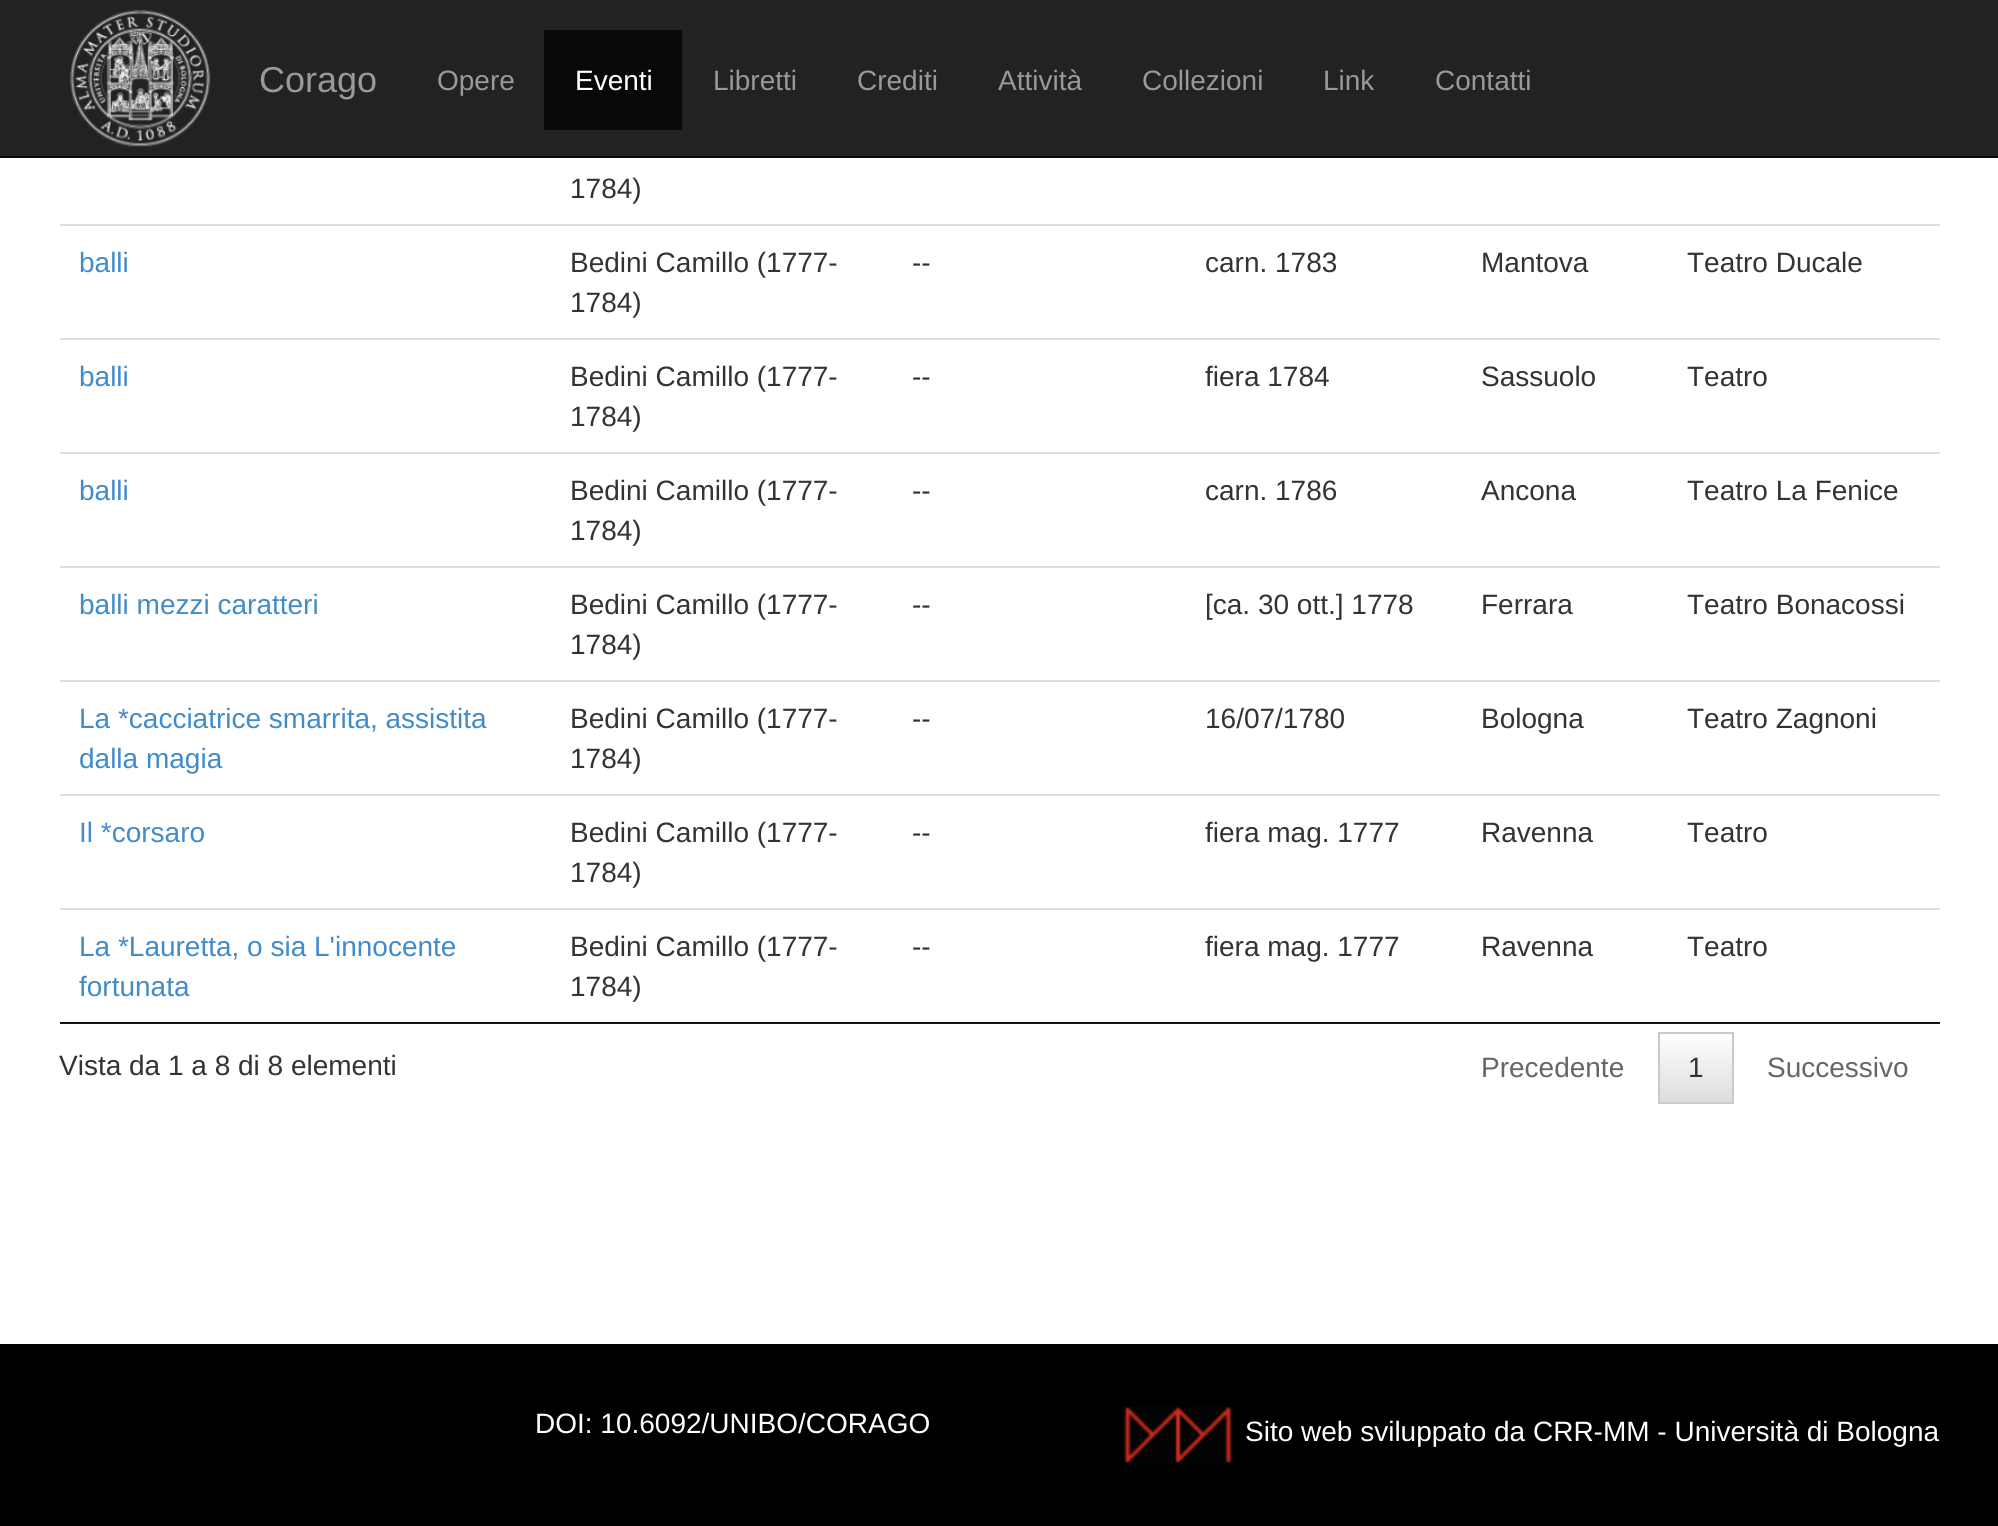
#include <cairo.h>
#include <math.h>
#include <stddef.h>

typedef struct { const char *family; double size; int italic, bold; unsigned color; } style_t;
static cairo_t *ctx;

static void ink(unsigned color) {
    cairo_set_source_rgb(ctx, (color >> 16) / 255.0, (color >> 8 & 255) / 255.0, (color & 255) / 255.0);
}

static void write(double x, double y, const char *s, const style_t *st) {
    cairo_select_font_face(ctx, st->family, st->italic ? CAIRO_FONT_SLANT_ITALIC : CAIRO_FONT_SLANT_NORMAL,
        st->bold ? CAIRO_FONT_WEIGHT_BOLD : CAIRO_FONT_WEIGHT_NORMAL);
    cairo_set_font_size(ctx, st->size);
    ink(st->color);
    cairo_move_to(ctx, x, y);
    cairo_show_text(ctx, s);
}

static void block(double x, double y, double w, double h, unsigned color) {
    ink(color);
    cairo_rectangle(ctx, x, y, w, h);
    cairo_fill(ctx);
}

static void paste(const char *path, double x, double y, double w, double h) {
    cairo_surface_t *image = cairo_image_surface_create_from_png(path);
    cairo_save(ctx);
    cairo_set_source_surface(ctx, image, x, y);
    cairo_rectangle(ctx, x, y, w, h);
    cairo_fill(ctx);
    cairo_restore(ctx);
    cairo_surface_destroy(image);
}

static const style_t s1 = {"Liberation Sans", 36, 0, 0, 0x999999};
static const style_t s2 = {"Liberation Sans", 28, 0, 0, 0x999999};
static const style_t s3 = {"Liberation Sans", 28, 0, 0, 0xffffff};
static const style_t s4 = {"Liberation Sans", 28, 0, 0, 0x333333};
static const style_t s5 = {"Liberation Sans", 28, 0, 0, 0x428bca};
static const style_t s6 = {"Liberation Sans", 28, 0, 0, 0x666666};

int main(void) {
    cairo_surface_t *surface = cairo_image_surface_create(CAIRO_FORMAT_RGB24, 1998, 1526);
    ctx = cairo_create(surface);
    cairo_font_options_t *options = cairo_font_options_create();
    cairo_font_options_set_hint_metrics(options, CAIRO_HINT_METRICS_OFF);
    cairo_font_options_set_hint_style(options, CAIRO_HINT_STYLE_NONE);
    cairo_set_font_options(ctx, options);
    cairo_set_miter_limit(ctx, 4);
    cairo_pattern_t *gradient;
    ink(0xffffff);
    cairo_paint(ctx);
    block(0, 0, 1998, 156, 0x222222);
    block(0, 156, 1998, 2, 0x080808);
    paste("pic1.png", 69, 9, 142, 138);
    write(259, 92, "Corago", &s1);
    write(437, 90, "Opere", &s2);
    block(544, 30, 138, 100, 0x080808);
    write(575, 90, "Eventi", &s3);
    write(713, 90, "Libretti", &s2);
    write(857, 90, "Crediti", &s2);
    write(998, 90, "Attività", &s2);
    write(1142, 90, "Collezioni", &s2);
    write(1323, 90, "Link", &s2);
    write(1435, 90, "Contatti", &s2);
    block(60, 1022, 1880, 2, 0x111111);
    write(570, 198, "1784)", &s4);
    block(60, 224, 1880, 2, 0xdddddd);
    write(79, 272, "balli", &s5);
    write(570, 272, "Bedini Camillo (1777-", &s4);
    write(570, 312, "1784)", &s4);
    write(912, 272, "--", &s4);
    write(1205, 272, "carn. 1783", &s4);
    write(1481, 272, "Mantova", &s4);
    write(1687, 272, "Teatro Ducale", &s4);
    block(60, 338, 1880, 2, 0xdddddd);
    write(79, 386, "balli", &s5);
    write(570, 386, "Bedini Camillo (1777-", &s4);
    write(570, 426, "1784)", &s4);
    write(912, 386, "--", &s4);
    write(1205, 386, "fiera 1784", &s4);
    write(1481, 386, "Sassuolo", &s4);
    write(1687, 386, "Teatro", &s4);
    block(60, 452, 1880, 2, 0xdddddd);
    write(79, 500, "balli", &s5);
    write(570, 500, "Bedini Camillo (1777-", &s4);
    write(570, 540, "1784)", &s4);
    write(912, 500, "--", &s4);
    write(1205, 500, "carn. 1786", &s4);
    write(1481, 500, "Ancona", &s4);
    write(1687, 500, "Teatro La Fenice", &s4);
    block(60, 566, 1880, 2, 0xdddddd);
    write(79, 614, "balli mezzi caratteri", &s5);
    write(570, 614, "Bedini Camillo (1777-", &s4);
    write(570, 654, "1784)", &s4);
    write(912, 614, "--", &s4);
    write(1205, 614, "[ca. 30 ott.] 1778", &s4);
    write(1481, 614, "Ferrara", &s4);
    write(1687, 614, "Teatro Bonacossi", &s4);
    block(60, 680, 1880, 2, 0xdddddd);
    write(79, 728, "La *cacciatrice smarrita, assistita", &s5);
    write(79, 768, "dalla magia", &s5);
    write(570, 728, "Bedini Camillo (1777-", &s4);
    write(570, 768, "1784)", &s4);
    write(912, 728, "--", &s4);
    write(1205, 728, "16/07/1780", &s4);
    write(1481, 728, "Bologna", &s4);
    write(1687, 728, "Teatro Zagnoni", &s4);
    block(60, 794, 1880, 2, 0xdddddd);
    write(79, 842, "Il *corsaro", &s5);
    write(570, 842, "Bedini Camillo (1777-", &s4);
    write(570, 882, "1784)", &s4);
    write(912, 842, "--", &s4);
    write(1205, 842, "fiera mag. 1777", &s4);
    write(1481, 842, "Ravenna", &s4);
    write(1687, 842, "Teatro", &s4);
    block(60, 908, 1880, 2, 0xdddddd);
    write(79, 956, "La *Lauretta, o sia L'innocente", &s5);
    write(79, 996, "fortunata", &s5);
    write(570, 956, "Bedini Camillo (1777-", &s4);
    write(570, 996, "1784)", &s4);
    write(912, 956, "--", &s4);
    write(1205, 956, "fiera mag. 1777", &s4);
    write(1481, 956, "Ravenna", &s4);
    write(1687, 956, "Teatro", &s4);
    write(59, 1075, "Vista da 1 a 8 di 8 elementi", &s4);
    write(1481, 1077, "Precedente", &s6);
    gradient = cairo_pattern_create_linear(1696, 1034, 1696, 1102);
    cairo_pattern_add_color_stop_rgba(gradient, 0, 1, 1, 1, 1);
    cairo_pattern_add_color_stop_rgba(gradient, 1, 0.863, 0.863, 0.863, 1);
    cairo_set_source(ctx, gradient);
    cairo_pattern_destroy(gradient);
    cairo_rectangle(ctx, 1660, 1039, 72, 63);
    cairo_fill(ctx);
    cairo_rectangle(ctx, 1659, 1033, 74, 70);
    ink(0xcacaca);
    cairo_stroke(ctx);
    write(1688, 1077, "1", &s4);
    write(1767, 1077, "Successivo", &s6);
    block(0, 1344, 1998, 182, 0x000000);
    write(535, 1433, "DOI: 10.6092/UNIBO/CORAGO", &s3);
    paste("pic2.png", 1123, 1406, 110, 59);
    write(1245, 1441, "Sito web sviluppato da CRR-MM - Università di Bologna", &s3);
    cairo_surface_write_to_png(surface, "screenshot.png");
    cairo_font_options_destroy(options);
    cairo_destroy(ctx);
    cairo_surface_destroy(surface);
    return 0;
}
